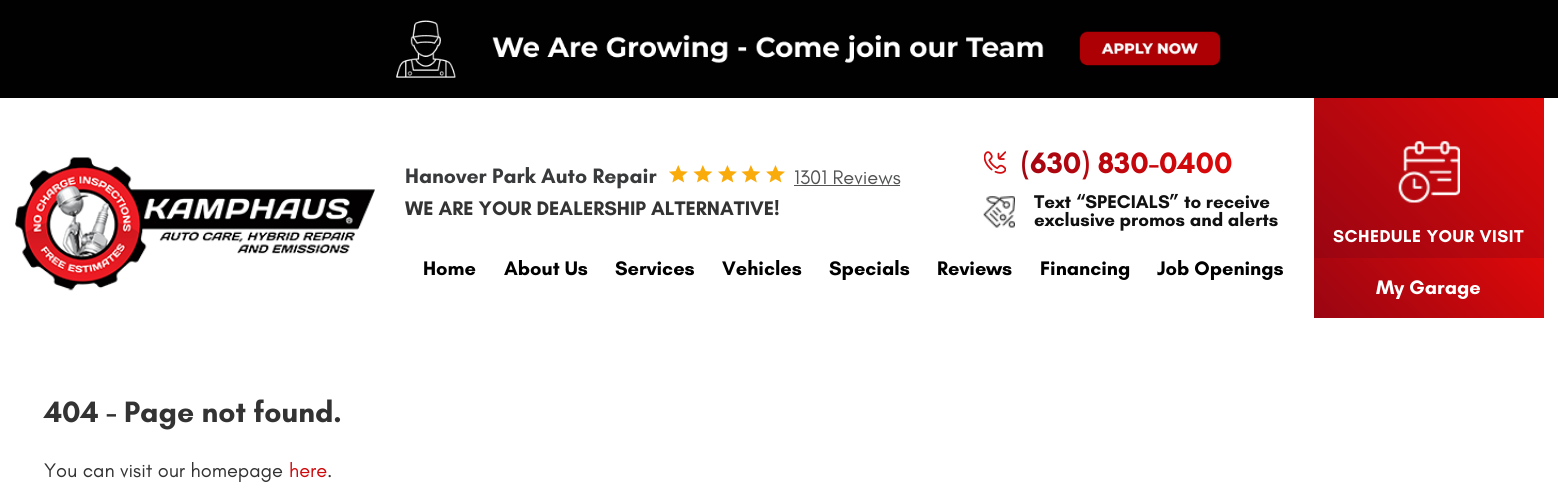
#include <cairo.h>
#include <math.h>
#include <stddef.h>

typedef struct { const char *family; double size; int italic, bold; unsigned color; } style_t;
static cairo_t *ctx;

static void ink(unsigned color) {
    cairo_set_source_rgb(ctx, (color >> 16) / 255.0, (color >> 8 & 255) / 255.0, (color & 255) / 255.0);
}

static void write(double x, double y, const char *s, const style_t *st) {
    cairo_select_font_face(ctx, st->family, st->italic ? CAIRO_FONT_SLANT_ITALIC : CAIRO_FONT_SLANT_NORMAL,
        st->bold ? CAIRO_FONT_WEIGHT_BOLD : CAIRO_FONT_WEIGHT_NORMAL);
    cairo_set_font_size(ctx, st->size);
    ink(st->color);
    cairo_move_to(ctx, x, y);
    cairo_show_text(ctx, s);
}

static void write_spaced(double x, double y, const char *s, double letter, double word) {
    cairo_move_to(ctx, x, y);
    while (*s) {
        char ch[5] = {0};
        int n = 0;
        do ch[n++] = *s++; while ((*s & 0xC0) == 0x80);
        cairo_show_text(ctx, ch);
        cairo_rel_move_to(ctx, letter + word * (*ch == ' '), 0);
    }
}

static void block(double x, double y, double w, double h, unsigned color) {
    ink(color);
    cairo_rectangle(ctx, x, y, w, h);
    cairo_fill(ctx);
}

static void paste(const char *path, double x, double y, double w, double h) {
    cairo_surface_t *image = cairo_image_surface_create_from_png(path);
    cairo_save(ctx);
    cairo_set_source_surface(ctx, image, x, y);
    cairo_rectangle(ctx, x, y, w, h);
    cairo_fill(ctx);
    cairo_restore(ctx);
    cairo_surface_destroy(image);
}

static const style_t s1 = {"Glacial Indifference", 21.25, 0, 1, 0x393a3b};
static const style_t s2 = {"Glacial Indifference", 20, 0, 0, 0x525354};
static const style_t s3 = {"Glacial Indifference", 20, 0, 1, 0x333333};
static const style_t s4 = {"Glacial Indifference", 18.75, 0, 1, 0x101010};
static const style_t s5 = {"Glacial Indifference", 20, 0, 1, 0x000000};
static const style_t s6 = {"Glacial Indifference", 20, 0, 1, 0xffffff};
static const style_t s7 = {"Glacial Indifference", 30, 0, 1, 0x333333};
static const style_t s8 = {"Glacial Indifference", 20, 0, 0, 0x333333};
static const style_t s9 = {"Glacial Indifference", 20, 0, 0, 0xce080b};

int main(void) {
    cairo_surface_t *surface = cairo_image_surface_create(CAIRO_FORMAT_RGB24, 1558, 492);
    ctx = cairo_create(surface);
    cairo_font_options_t *options = cairo_font_options_create();
    cairo_font_options_set_hint_metrics(options, CAIRO_HINT_METRICS_OFF);
    cairo_font_options_set_hint_style(options, CAIRO_HINT_STYLE_NONE);
    cairo_set_font_options(ctx, options);
    cairo_set_miter_limit(ctx, 4);
    cairo_pattern_t *gradient;
    ink(0xffffff);
    cairo_paint(ctx);
    block(0, 0, 1558, 98, 0x010101);
    paste("pic1.png", 396, 20, 825, 58);
    paste("pic2.png", 15, 157, 360, 134);
    write(405, 183, "Hanover Park Auto Repair", &s1);
    paste("pic3.png", 669, 165, 116, 18);
    block(794, 185, 106, 1, 0x525354);
    write(794, 184, "1301 Reviews", &s2);
    write(405, 215, "WE ARE YOUR DEALERSHIP ALTERNATIVE!", &s3);
    paste("pic4.png", 984, 151, 22, 23);
    cairo_set_font_size(ctx, 30);
    gradient = cairo_pattern_create_linear(984, 163, 1233, 163);
    cairo_pattern_add_color_stop_rgba(gradient, 0, 0.6, 0.02, 0.071, 1);
    cairo_pattern_add_color_stop_rgba(gradient, 1, 0.871, 0.035, 0.035, 1);
    cairo_set_source(ctx, gradient);
    cairo_pattern_destroy(gradient);
    cairo_move_to(ctx, 1021, 173);
    cairo_show_text(ctx, "(630) 830-0400");
    paste("pic5.png", 983, 196, 32, 32);
    write(1034, 208, "Text “SPECIALS” to receive", &s4);
    write(1034, 226, "exclusive promos and alerts", &s4);
    write(423, 275, "Home", &s5);
    write(504, 275, "About Us", &s5);
    write(615, 275, "Services", &s5);
    write(722, 275, "Vehicles", &s5);
    write(829, 275, "Specials", &s5);
    write(937, 275, "Reviews", &s5);
    write(1040, 275, "Financing", &s5);
    write(1157, 275, "Job Openings", &s5);
    gradient = cairo_pattern_create_linear(1331, 275, 1526, 80);
    cairo_pattern_add_color_stop_rgba(gradient, 0, 0.6, 0.02, 0.071, 1);
    cairo_pattern_add_color_stop_rgba(gradient, 1, 0.871, 0.035, 0.035, 1);
    cairo_set_source(ctx, gradient);
    cairo_pattern_destroy(gradient);
    cairo_rectangle(ctx, 1314, 98, 230, 160);
    cairo_fill(ctx);
    paste("pic6.png", 1398, 141, 62, 62);
    cairo_set_font_size(ctx, 17.5);
    ink(0xffffff);
    write_spaced(1333, 242, "SCHEDULE YOUR VISIT", 0.5, 0);
    gradient = cairo_pattern_create_linear(1356, 360, 1501, 215);
    cairo_pattern_add_color_stop_rgba(gradient, 0, 0.6, 0.02, 0.071, 1);
    cairo_pattern_add_color_stop_rgba(gradient, 1, 0.871, 0.035, 0.035, 1);
    cairo_set_source(ctx, gradient);
    cairo_pattern_destroy(gradient);
    cairo_rectangle(ctx, 1314, 258, 230, 60);
    cairo_fill(ctx);
    write(1376, 294, "My Garage", &s6);
    write(44, 422, "404 - Page not found.", &s7);
    write(44, 477, "You can visit our homepage", &s8);
    write(289, 477, "here", &s9);
    write(327, 477, ".", &s8);
    cairo_surface_write_to_png(surface, "screenshot.png");
    cairo_font_options_destroy(options);
    cairo_destroy(ctx);
    cairo_surface_destroy(surface);
    return 0;
}
